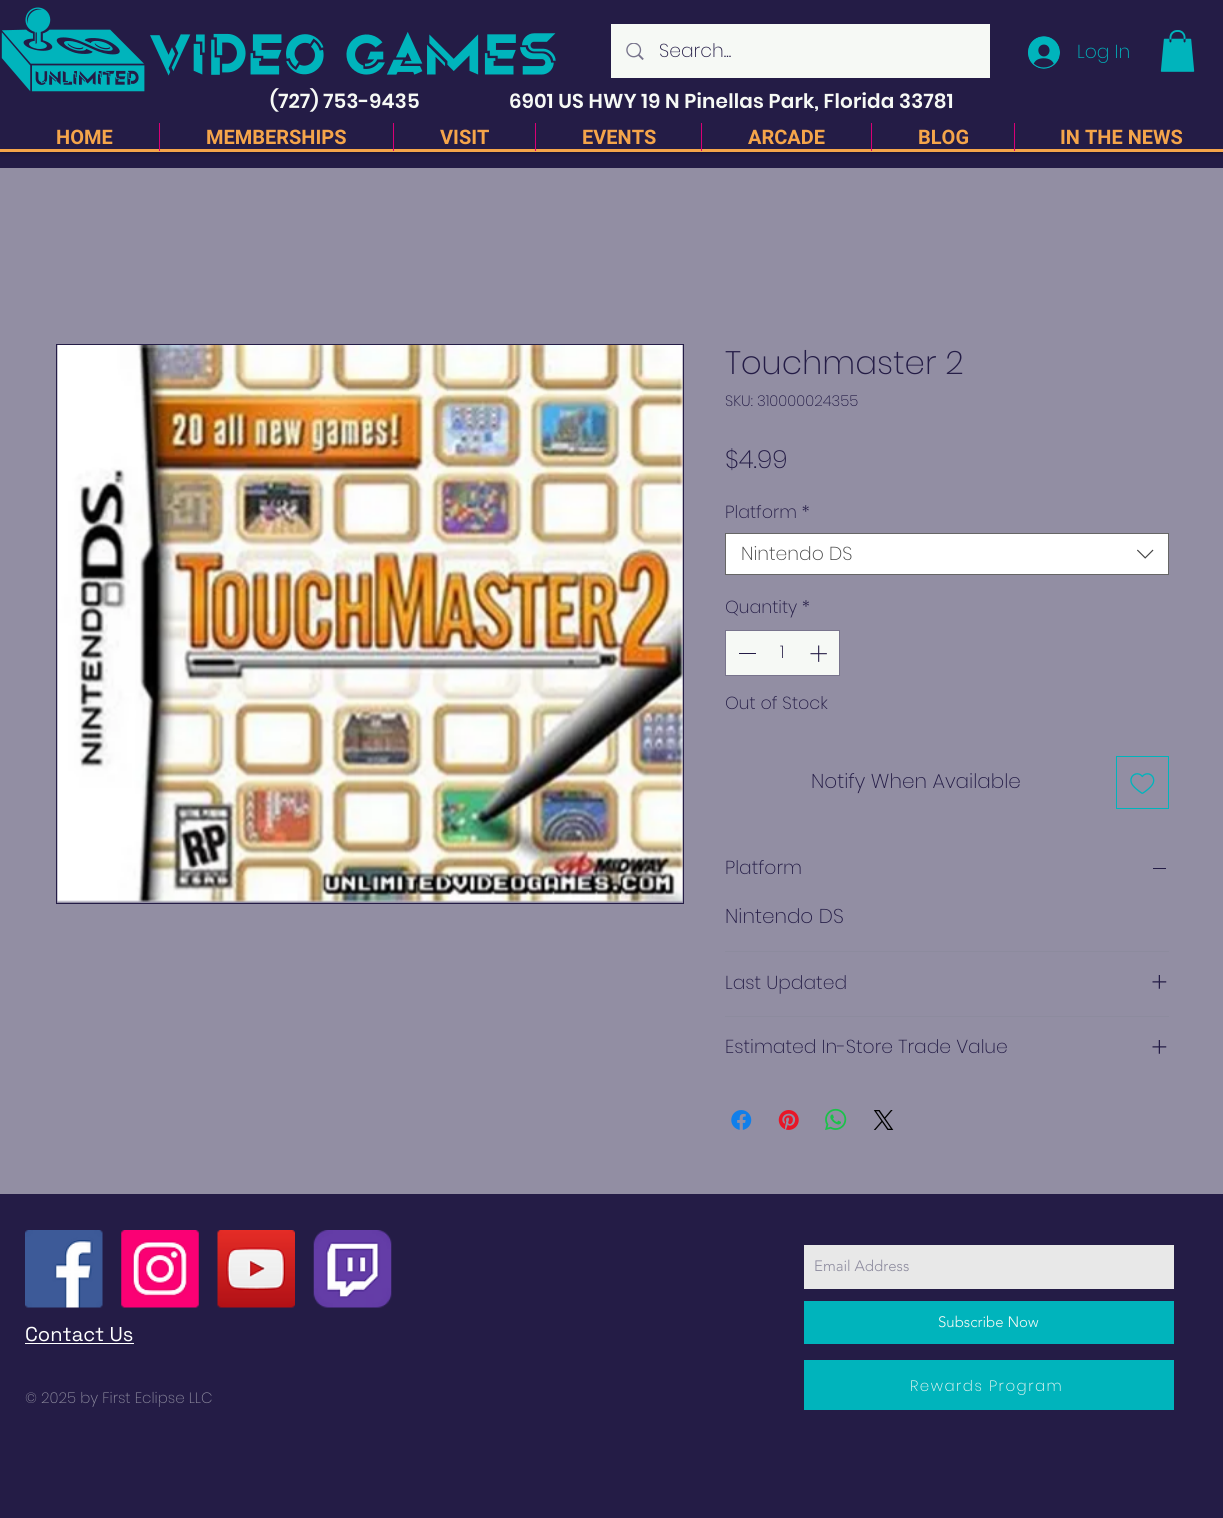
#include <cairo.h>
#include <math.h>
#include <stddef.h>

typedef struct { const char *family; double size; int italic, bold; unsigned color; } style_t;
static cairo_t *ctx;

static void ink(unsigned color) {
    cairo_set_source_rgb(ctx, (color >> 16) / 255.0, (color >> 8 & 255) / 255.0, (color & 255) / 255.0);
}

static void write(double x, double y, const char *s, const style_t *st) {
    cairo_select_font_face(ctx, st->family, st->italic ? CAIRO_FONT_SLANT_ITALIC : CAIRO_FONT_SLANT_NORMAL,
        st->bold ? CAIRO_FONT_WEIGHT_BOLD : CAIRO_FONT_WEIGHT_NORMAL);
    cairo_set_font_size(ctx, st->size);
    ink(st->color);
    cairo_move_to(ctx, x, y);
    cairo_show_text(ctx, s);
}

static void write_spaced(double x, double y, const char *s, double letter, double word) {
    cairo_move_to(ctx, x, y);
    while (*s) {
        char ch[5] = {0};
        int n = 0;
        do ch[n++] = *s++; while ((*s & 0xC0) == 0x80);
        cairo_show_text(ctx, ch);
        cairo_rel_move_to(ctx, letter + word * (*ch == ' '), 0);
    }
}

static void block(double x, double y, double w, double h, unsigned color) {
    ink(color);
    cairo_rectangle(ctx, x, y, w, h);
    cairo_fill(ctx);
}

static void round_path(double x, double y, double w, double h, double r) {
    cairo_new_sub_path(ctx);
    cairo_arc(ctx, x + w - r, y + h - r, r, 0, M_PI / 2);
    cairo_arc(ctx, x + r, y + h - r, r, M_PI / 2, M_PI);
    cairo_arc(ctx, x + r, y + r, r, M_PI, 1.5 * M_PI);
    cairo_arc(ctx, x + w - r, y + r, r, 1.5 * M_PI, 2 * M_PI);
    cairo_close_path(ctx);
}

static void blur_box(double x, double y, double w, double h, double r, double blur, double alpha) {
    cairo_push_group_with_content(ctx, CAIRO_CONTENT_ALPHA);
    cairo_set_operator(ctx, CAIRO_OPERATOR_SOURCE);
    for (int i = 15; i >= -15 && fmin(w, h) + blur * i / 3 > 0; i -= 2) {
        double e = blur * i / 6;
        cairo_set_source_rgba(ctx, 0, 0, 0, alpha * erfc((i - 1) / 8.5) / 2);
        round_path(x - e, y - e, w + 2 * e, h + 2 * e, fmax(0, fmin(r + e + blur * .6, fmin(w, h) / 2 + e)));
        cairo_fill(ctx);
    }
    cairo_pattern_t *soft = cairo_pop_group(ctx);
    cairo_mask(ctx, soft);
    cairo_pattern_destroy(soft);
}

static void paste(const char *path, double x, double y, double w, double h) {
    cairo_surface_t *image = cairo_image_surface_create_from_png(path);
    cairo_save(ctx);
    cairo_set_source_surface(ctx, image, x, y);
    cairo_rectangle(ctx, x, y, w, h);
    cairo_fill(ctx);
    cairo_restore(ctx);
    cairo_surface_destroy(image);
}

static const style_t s1 = {"Poppins ExtraLight", 18.75, 0, 0, 0x241c46};
static const style_t s2 = {"Poppins ExtraLight", 18.75, 0, 0, 0x00b4bc};
static const style_t s3 = {"Roboto", 20, 0, 1, 0xf5a54a};
static const style_t s4 = {"Poppins ExtraLight", 32.5, 0, 0, 0x241c46};
static const style_t s5 = {"Poppins ExtraLight", 15, 0, 0, 0x241c46};
static const style_t s6 = {"Poppins ExtraLight", 25, 0, 0, 0x241c46};
static const style_t s7 = {"Poppins ExtraLight", 17.5, 0, 0, 0x241c46};
static const style_t s8 = {"Poppins ExtraLight", 18.75, 0, 0, 0x444444};
static const style_t s9 = {"Poppins ExtraLight", 20, 0, 0, 0x241c46};
static const style_t s10 = {"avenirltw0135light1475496 Light", 15, 0, 0, 0x8d8b9e};
static const style_t s11 = {"avenirltw0135light1475496 Light", 15, 0, 0, 0xf6f9f5};
static const style_t s12 = {"Space Grotesk", 20, 0, 0, 0xffffff};
static const style_t s13 = {"Poppins ExtraLight", 15, 0, 0, 0x8d8b9e};

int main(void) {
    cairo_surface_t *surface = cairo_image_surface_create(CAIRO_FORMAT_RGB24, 1223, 1518);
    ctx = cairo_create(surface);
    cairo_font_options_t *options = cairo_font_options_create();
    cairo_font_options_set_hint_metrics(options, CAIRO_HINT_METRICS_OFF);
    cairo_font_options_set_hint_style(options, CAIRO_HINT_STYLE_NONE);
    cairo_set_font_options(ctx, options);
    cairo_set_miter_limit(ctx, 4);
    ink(0x241c46);
    cairo_paint(ctx);
    cairo_save(ctx);
    cairo_rectangle(ctx, 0, 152, 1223, 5);
    cairo_clip(ctx);
    ink(0x000000);
    blur_box(0, 0, 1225, 151, 0, 3, 0.7);
    cairo_restore(ctx);
    block(0, 149, 1223, 3, 0xf5a54a);
    paste("pic1.png", 1, 7, 555, 85);
    block(611, 24, 379, 54, 0xf6f9f5);
    paste("pic2.png", 626, 43, 18, 17);
    write(659, 57, "Search...", &s1);
    paste("pic3.png", 1028, 36, 32, 33);
    write(1077, 58, "Log In", &s2);
    paste("pic4.png", 1160, 30, 35, 42);
    cairo_select_font_face(ctx, "Poppins SemiBold", CAIRO_FONT_SLANT_NORMAL, CAIRO_FONT_WEIGHT_NORMAL);
    cairo_set_font_size(ctx, 20);
    ink(0xf6f9f5);
    write_spaced(270, 108, "(727) 753-9435", 0.2, 0);
    write_spaced(509, 108, "6901 US HWY 19 N Pinellas Park, Florida 33781", 0.2, 0);
    write(56, 144, "HOME", &s3);
    block(159, 123, 1, 28, 0xd90075);
    write(206, 144, "MEMBERSHIPS", &s3);
    block(393, 123, 1, 28, 0xd90075);
    write(440, 144, "VISIT", &s3);
    block(535, 123, 1, 28, 0xd90075);
    write(582, 144, "EVENTS", &s3);
    block(701, 123, 1, 28, 0xd90075);
    write(748, 144, "ARCADE", &s3);
    block(871, 123, 1, 28, 0xd90075);
    write(918, 144, "BLOG", &s3);
    block(1014, 123, 1, 28, 0xd90075);
    write(1060, 144, "IN THE NEWS", &s3);
    block(0, 168, 1223, 1026, 0x928ea3);
    cairo_rectangle(ctx, 56.5, 344.5, 627, 559);
    ink(0x241c46);
    cairo_set_line_width(ctx, 1);
    cairo_stroke(ctx);
    paste("pic5.png", 57, 345, 626, 557);
    write(725, 374, "Touchmaster 2", &s4);
    write(725, 406, "SKU: 310000024355", &s5);
    write(725, 468, "$4.99", &s6);
    write(725, 518, "Platform *", &s7);
    ink(0xffffff);
    cairo_rectangle(ctx, 725.5, 533.5, 443, 41);
    cairo_fill_preserve(ctx);
    ink(0x666666);
    cairo_stroke(ctx);
    write(741, 560, "Nintendo DS", &s8);
    paste("pic6.png", 1137, 549, 17, 10);
    write(725, 613, "Quantity *", &s7);
    ink(0xf6f9f5);
    cairo_rectangle(ctx, 725.5, 630.5, 114, 45);
    cairo_fill_preserve(ctx);
    ink(0x78748c);
    cairo_stroke(ctx);
    block(739, 653, 17, 1, 0x241c46);
    write(780, 658, "1", &s7);
    paste("pic7.png", 810, 645, 17, 17);
    write(725, 709, "Out of Stock", &s7);
    write(811, 788, "Notify When Available", &s9);
    cairo_rectangle(ctx, 1116.5, 756.5, 52, 52);
    ink(0x00b4bc);
    cairo_stroke(ctx);
    paste("pic8.png", 1130, 773, 25, 21);
    block(725, 951, 444, 1, 0x8d8b9e);
    write(725, 874, "Platform", &s1);
    block(1153, 868, 13, 1, 0x241c46);
    write(725, 923, "Nintendo DS", &s9);
    block(725, 1016, 444, 1, 0x8d8b9e);
    write(725, 989, "Last Updated", &s1);
    paste("pic9.png", 1152, 975, 15, 14);
    write(725, 1053, "Estimated In-Store Trade Value", &s1);
    paste("pic9.png", 1152, 1040, 15, 14);
    paste("pic10.png", 731, 1110, 21, 20);
    paste("pic11.png", 778, 1110, 21, 20);
    paste("pic12.png", 825, 1108, 22, 22);
    paste("pic13.png", 873, 1110, 21, 20);
    paste("pic14.png", 25, 1230, 78, 78);
    paste("pic15.png", 121, 1230, 78, 78);
    paste("pic16.png", 217, 1230, 78, 78);
    paste("pic17.png", 313, 1230, 79, 78);
    block(804, 1245, 370, 44, 0xe8e8e8);
    write(814, 1271, "Email Address", &s10);
    block(804, 1301, 370, 43, 0x00b4bc);
    write(938, 1327, "Subscribe Now", &s11);
    write(25, 1341, "Contact Us", &s12);
    block(25, 1343, 109, 1, 0xffffff);
    block(804, 1360, 370, 50, 0x00b4bc);
    cairo_select_font_face(ctx, "Poppins ExtraLight", CAIRO_FONT_SLANT_NORMAL, CAIRO_FONT_WEIGHT_NORMAL);
    cairo_set_font_size(ctx, 15);
    ink(0xf6f9f5);
    write_spaced(910, 1391, "Rewards Program", 1.5, 0);
    write(25, 1403, "© 2025 by First Eclipse LLC", &s13);
    cairo_surface_write_to_png(surface, "screenshot.png");
    cairo_font_options_destroy(options);
    cairo_destroy(ctx);
    cairo_surface_destroy(surface);
    return 0;
}
